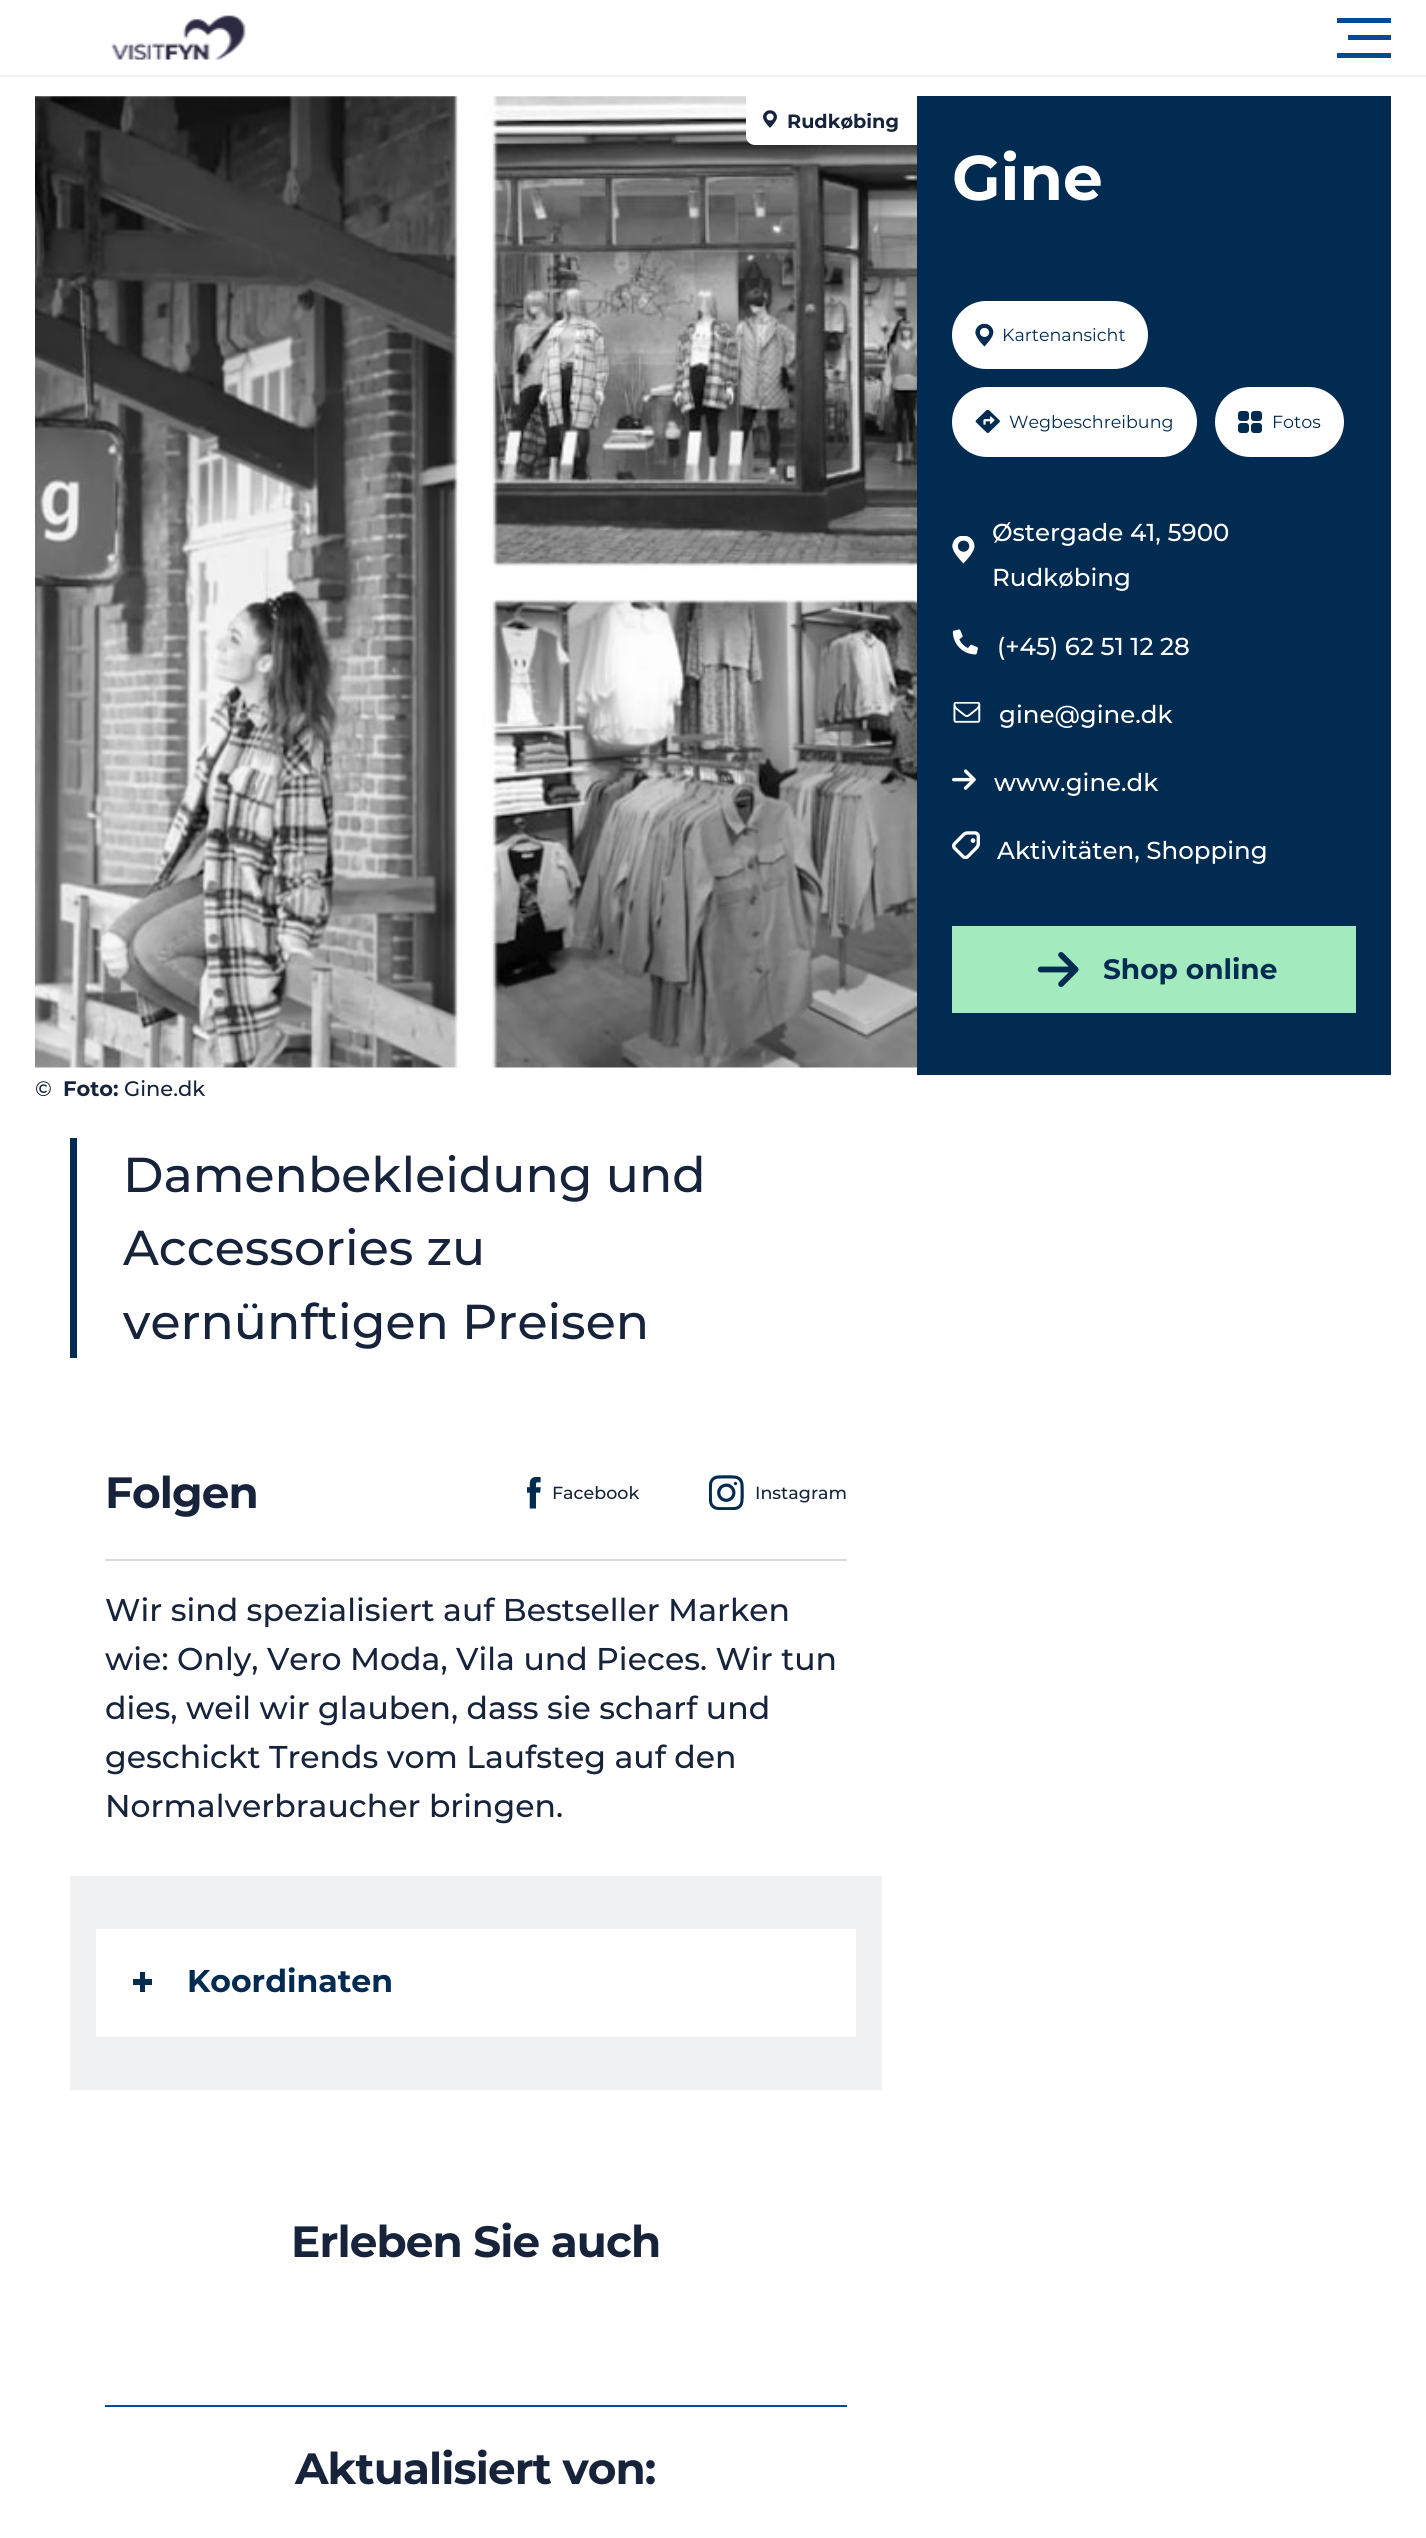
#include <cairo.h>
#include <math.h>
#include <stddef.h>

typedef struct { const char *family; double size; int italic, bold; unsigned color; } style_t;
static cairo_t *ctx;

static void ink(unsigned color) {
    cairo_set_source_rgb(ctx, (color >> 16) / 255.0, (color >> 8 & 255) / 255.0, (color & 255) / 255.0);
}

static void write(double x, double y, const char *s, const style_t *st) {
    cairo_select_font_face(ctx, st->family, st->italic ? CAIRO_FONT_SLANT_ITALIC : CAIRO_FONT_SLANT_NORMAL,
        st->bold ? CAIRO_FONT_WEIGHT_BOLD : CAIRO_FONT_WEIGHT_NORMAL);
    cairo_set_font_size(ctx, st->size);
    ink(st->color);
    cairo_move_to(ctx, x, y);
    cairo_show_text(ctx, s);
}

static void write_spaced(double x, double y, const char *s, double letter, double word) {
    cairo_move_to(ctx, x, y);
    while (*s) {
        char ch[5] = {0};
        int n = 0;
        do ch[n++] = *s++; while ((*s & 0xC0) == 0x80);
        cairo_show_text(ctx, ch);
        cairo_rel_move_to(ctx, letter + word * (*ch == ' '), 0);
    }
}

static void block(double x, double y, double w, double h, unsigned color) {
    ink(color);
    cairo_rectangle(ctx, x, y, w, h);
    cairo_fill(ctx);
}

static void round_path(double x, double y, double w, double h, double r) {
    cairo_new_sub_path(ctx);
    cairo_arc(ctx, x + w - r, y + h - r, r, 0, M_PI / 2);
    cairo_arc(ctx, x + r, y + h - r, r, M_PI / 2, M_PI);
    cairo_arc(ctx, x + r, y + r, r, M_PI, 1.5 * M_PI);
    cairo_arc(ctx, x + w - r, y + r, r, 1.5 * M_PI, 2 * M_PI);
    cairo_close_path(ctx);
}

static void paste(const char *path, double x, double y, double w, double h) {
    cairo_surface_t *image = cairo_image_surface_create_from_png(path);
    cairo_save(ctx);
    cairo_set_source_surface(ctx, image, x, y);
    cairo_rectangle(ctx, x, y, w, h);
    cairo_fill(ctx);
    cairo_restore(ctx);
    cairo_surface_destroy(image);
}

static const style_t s1 = {"Montserrat", 19.25, 0, 1, 0x16233b};
static const style_t s2 = {"Montserrat Medium", 21, 0, 0, 0x16233b};
static const style_t s3 = {"Montserrat", 21, 0, 1, 0x16233b};
static const style_t s4 = {"Montserrat", 63, 0, 1, 0xffffff};
static const style_t s5 = {"Montserrat", 17.5, 0, 0, 0x022b52};
static const style_t s6 = {"Montserrat Medium", 24.5, 0, 0, 0xffffff};
static const style_t s7 = {"Montserrat", 28, 0, 1, 0x022b52};
static const style_t s8 = {"Montserrat Medium", 49, 0, 0, 0x16233b};
static const style_t s9 = {"Montserrat Medium", 17.5, 0, 0, 0x16233b};
static const style_t s10 = {"Montserrat Medium", 31.5, 0, 0, 0x16233b};
static const style_t s11 = {"Montserrat", 31.5, 0, 1, 0x022b52};

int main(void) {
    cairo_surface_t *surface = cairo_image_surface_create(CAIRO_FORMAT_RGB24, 1426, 2538);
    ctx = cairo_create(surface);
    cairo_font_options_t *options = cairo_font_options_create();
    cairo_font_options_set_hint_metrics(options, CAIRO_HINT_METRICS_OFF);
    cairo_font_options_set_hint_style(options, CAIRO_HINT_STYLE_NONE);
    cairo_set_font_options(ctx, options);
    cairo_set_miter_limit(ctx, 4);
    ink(0xffffff);
    cairo_paint(ctx);
    block(0, 75, 1426, 2, 0xf0f1f3);
    paste("pic1.png", 111, 15, 135, 45);
    block(1337, 18, 54, 5, 0x004a98);
    block(1348, 35, 43, 5, 0x004a98);
    block(1337, 53, 54, 5, 0x004a98);
    paste("pic2.png", 35, 96, 882, 972);
    ink(0xffffff);
    cairo_new_path(ctx);
    cairo_move_to(ctx, 746, 96);
    cairo_line_to(ctx, 917, 96);
    cairo_line_to(ctx, 917, 145);
    cairo_line_to(ctx, 755, 145);
    cairo_curve_to(ctx, 750, 145, 746, 141, 746, 136);
    cairo_close_path(ctx);
    cairo_fill(ctx);
    paste("pic3.png", 763, 110, 14, 18);
    write(787, 128, "Rudkøbing", &s1);
    write(35, 1096, "©", &s2);
    write(63, 1096, "Foto:", &s3);
    write(124, 1096, "Gine.dk", &s2);
    block(917, 96, 474, 979, 0x022b52);
    write(952, 200, "Gine", &s4);
    round_path(952, 301, 196, 68, 34);
    cairo_fill(ctx);
    paste("pic4.png", 975, 324, 19, 23);
    write(1002, 341, "Kartenansicht", &s5);
    ink(0xffffff);
    round_path(952, 387, 245, 70, 35);
    cairo_fill(ctx);
    paste("pic5.png", 975, 410, 25, 23);
    write(1009, 428, "Wegbeschreibung", &s5);
    ink(0xffffff);
    round_path(1215, 387, 129, 70, 35);
    cairo_fill(ctx);
    ink(0x022b52);
    round_path(1251, 411, 11, 10, 3);
    cairo_fill(ctx);
    round_path(1251, 423, 11, 10, 3);
    cairo_fill(ctx);
    round_path(1238, 411, 11, 10, 3);
    cairo_fill(ctx);
    round_path(1238, 423, 11, 10, 3);
    cairo_fill(ctx);
    write(1272, 428, "Fotos", &s5);
    paste("pic6.png", 952, 536, 23, 28);
    write(992, 541, "Østergade 41, 5900", &s6);
    write(992, 586, "Rudkøbing", &s6);
    paste("pic7.png", 952, 629, 26, 26);
    write(997, 655, "(+45) 62 51 12 28", &s6);
    paste("pic8.png", 953, 702, 28, 21);
    write(999, 723, "gine@gine.dk", &s6);
    paste("pic9.png", 952, 769, 24, 21);
    write(994, 791, "www.gine.dk", &s6);
    paste("pic10.png", 952, 831, 28, 28);
    write(997, 859, "Aktivitäten, Shopping", &s6);
    block(952, 926, 404, 87, 0xa3eabf);
    paste("pic11.png", 1037, 952, 42, 35);
    write(1103, 979, "Shop online", &s7);
    block(70, 1138, 7, 220, 0x022b52);
    write(123, 1192, "Damenbekleidung und", &s8);
    write(123, 1265, "Accessories zu", &s8);
    write(123, 1339, "vernünftigen Preisen", &s8);
    block(105, 1559, 742, 2, 0xd8dadc);
    cairo_select_font_face(ctx, "Montserrat", CAIRO_FONT_SLANT_NORMAL, CAIRO_FONT_WEIGHT_BOLD);
    cairo_set_font_size(ctx, 43.75);
    ink(0x16233b);
    write_spaced(105, 1508, "Folgen", -0.9, 0);
    paste("pic12.png", 527, 1477, 14, 32);
    write(552, 1499, "Facebook", &s9);
    paste("pic13.png", 709, 1475, 35, 35);
    write(755, 1499, "Instagram", &s9);
    write(105, 1621, "Wir sind spezialisiert auf Bestseller Marken", &s10);
    write(105, 1670, "wie: Only, Vero Moda, Vila und Pieces. Wir tun", &s10);
    write(105, 1719, "dies, weil wir glauben, dass sie scharf und", &s10);
    write(105, 1768, "geschickt Trends vom Laufsteg auf den", &s10);
    write(105, 1817, "Normalverbraucher bringen.", &s10);
    block(70, 1876, 812, 214, 0xeff1f3);
    block(96, 1929, 760, 108, 0xffffff);
    block(133, 1979, 19, 6, 0x022b52);
    block(140, 1972, 5, 20, 0x022b52);
    write(187, 1992, "Koordinaten", &s11);
    cairo_set_font_size(ctx, 43.75);
    ink(0x16233b);
    write_spaced(291, 2257, "Erleben Sie auch", -0.9, 0);
    block(105, 2405, 742, 2, 0x004a98);
    ink(0x16233b);
    write_spaced(295, 2484, "Aktualisiert von:", -0.9, 0);
    cairo_surface_write_to_png(surface, "screenshot.png");
    cairo_font_options_destroy(options);
    cairo_destroy(ctx);
    cairo_surface_destroy(surface);
    return 0;
}
